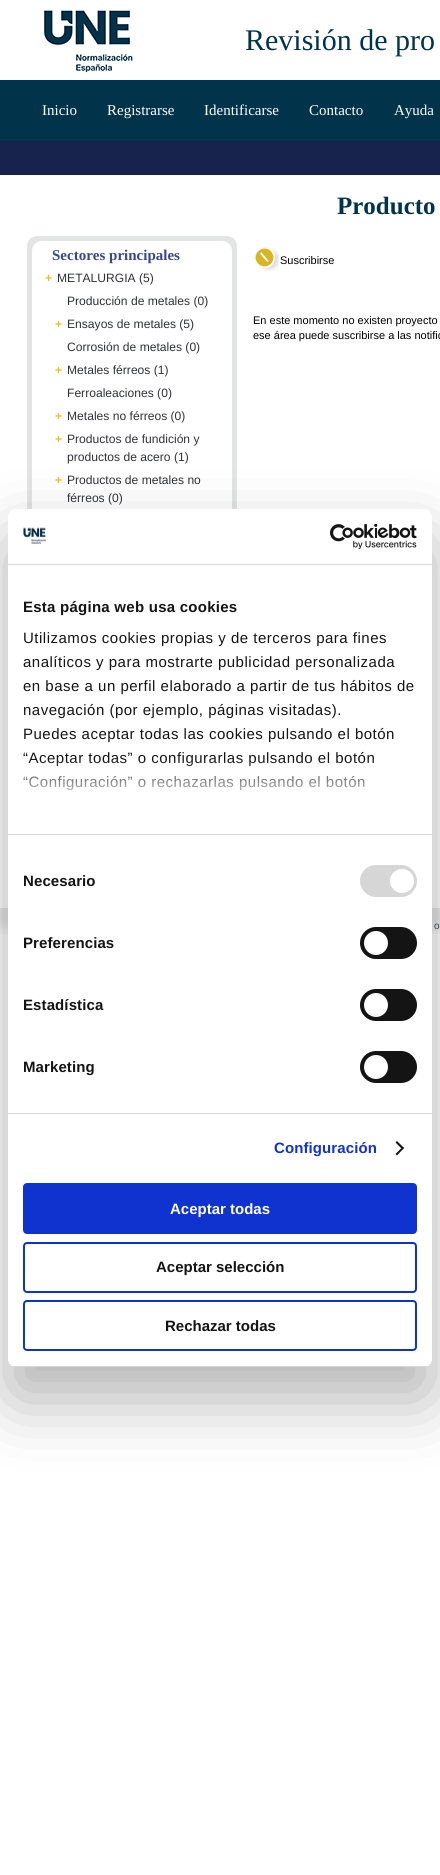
#include <cairo.h>
#include <math.h>
#include <stddef.h>

typedef struct { const char *family; double size; int italic, bold; unsigned color; } style_t;
static cairo_t *ctx;

static void ink(unsigned color) {
    cairo_set_source_rgb(ctx, (color >> 16) / 255.0, (color >> 8 & 255) / 255.0, (color & 255) / 255.0);
}

static void write(double x, double y, const char *s, const style_t *st) {
    cairo_select_font_face(ctx, st->family, st->italic ? CAIRO_FONT_SLANT_ITALIC : CAIRO_FONT_SLANT_NORMAL,
        st->bold ? CAIRO_FONT_WEIGHT_BOLD : CAIRO_FONT_WEIGHT_NORMAL);
    cairo_set_font_size(ctx, st->size);
    ink(st->color);
    cairo_move_to(ctx, x, y);
    cairo_show_text(ctx, s);
}

static void write_spaced(double x, double y, const char *s, double letter, double word) {
    cairo_move_to(ctx, x, y);
    while (*s) {
        char ch[5] = {0};
        int n = 0;
        do ch[n++] = *s++; while ((*s & 0xC0) == 0x80);
        cairo_show_text(ctx, ch);
        cairo_rel_move_to(ctx, letter + word * (*ch == ' '), 0);
    }
}

static void block(double x, double y, double w, double h, unsigned color) {
    ink(color);
    cairo_rectangle(ctx, x, y, w, h);
    cairo_fill(ctx);
}

static void round_path(double x, double y, double w, double h, double r) {
    cairo_new_sub_path(ctx);
    cairo_arc(ctx, x + w - r, y + h - r, r, 0, M_PI / 2);
    cairo_arc(ctx, x + r, y + h - r, r, M_PI / 2, M_PI);
    cairo_arc(ctx, x + r, y + r, r, M_PI, 1.5 * M_PI);
    cairo_arc(ctx, x + w - r, y + r, r, 1.5 * M_PI, 2 * M_PI);
    cairo_close_path(ctx);
}

static void blur_box(double x, double y, double w, double h, double r, double blur, double alpha) {
    cairo_push_group_with_content(ctx, CAIRO_CONTENT_ALPHA);
    cairo_set_operator(ctx, CAIRO_OPERATOR_SOURCE);
    for (int i = 15; i >= -15 && fmin(w, h) + blur * i / 3 > 0; i -= 2) {
        double e = blur * i / 6;
        cairo_set_source_rgba(ctx, 0, 0, 0, alpha * erfc((i - 1) / 8.5) / 2);
        round_path(x - e, y - e, w + 2 * e, h + 2 * e, fmax(0, fmin(r + e + blur * .6, fmin(w, h) / 2 + e)));
        cairo_fill(ctx);
    }
    cairo_pattern_t *soft = cairo_pop_group(ctx);
    cairo_mask(ctx, soft);
    cairo_pattern_destroy(soft);
}

static void paste(const char *path, double x, double y, double w, double h) {
    cairo_surface_t *image = cairo_image_surface_create_from_png(path);
    cairo_save(ctx);
    cairo_set_source_surface(ctx, image, x, y);
    cairo_rectangle(ctx, x, y, w, h);
    cairo_fill(ctx);
    cairo_restore(ctx);
    cairo_surface_destroy(image);
}

static const style_t s1 = {"Liberation Serif", 30, 0, 0, 0x01344b};
static const style_t s2 = {"Liberation Serif", 15, 0, 0, 0xffffff};
static const style_t s3 = {"Liberation Serif", 25, 0, 1, 0x01344b};
static const style_t s4 = {"Liberation Serif", 15, 0, 1, 0x37488d};
static const style_t s5 = {"Liberation Sans", 12.1, 0, 1, 0xe8c119};
static const style_t s6 = {"Liberation Sans", 12.1, 0, 0, 0x2f3138};
static const style_t s7 = {"Liberation Sans", 11, 0, 0, 0x000000};
static const style_t s8 = {"Liberation Sans", 15, 0, 1, 0xffffff};
static const style_t s9 = {"Liberation Sans", 15, 0, 1, 0x141414};
static const style_t s10 = {"Liberation Sans", 10, 0, 0, 0x3d4142};

int main(void) {
    cairo_surface_t *surface = cairo_image_surface_create(CAIRO_FORMAT_RGB24, 440, 1875);
    ctx = cairo_create(surface);
    cairo_font_options_t *options = cairo_font_options_create();
    cairo_font_options_set_hint_metrics(options, CAIRO_HINT_METRICS_OFF);
    cairo_font_options_set_hint_style(options, CAIRO_HINT_STYLE_NONE);
    cairo_set_font_options(ctx, options);
    cairo_set_miter_limit(ctx, 4);
    cairo_pattern_t *gradient;
    ink(0xffffff);
    cairo_paint(ctx);
    paste("pic1.png", 44, 8, 89, 65);
    write(245, 50, "Revisión de pro", &s1);
    block(0, 80, 440, 61, 0x01344b);
    write(42, 115, "Inicio", &s2);
    write(107, 115, "Registrarse", &s2);
    write(204, 115, "Identificarse", &s2);
    write(309, 115, "Contacto", &s2);
    write(394, 115, "Ayuda", &s2);
    block(0, 141, 440, 34, 0x18234d);
    write(337, 214, "Producto", &s3);
    ink(0xe3e4e4);
    round_path(27, 236, 210, 647, 10);
    cairo_fill(ctx);
    ink(0xffffff);
    round_path(32, 241, 200, 637, 10);
    cairo_fill(ctx);
    write(52, 260, "Sectores principales", &s4);
    write(45, 282, "+", &s5);
    write(57, 282, "METALURGIA (5)", &s6);
    write(67, 305, "Producción de metales (0)", &s6);
    write(55, 328, "+", &s5);
    write(67, 328, "Ensayos de metales (5)", &s6);
    write(67, 351, "Corrosión de metales (0)", &s6);
    write(55, 374, "+", &s5);
    write(67, 374, "Metales férreos (1)", &s6);
    write(67, 397, "Ferroaleaciones (0)", &s6);
    write(55, 420, "+", &s5);
    write(67, 420, "Metales no férreos (0)", &s6);
    write(55, 443, "+", &s5);
    write(67, 443, "Productos de fundición y", &s6);
    write(67, 461, "productos de acero (1)", &s6);
    write(55, 484, "+", &s5);
    write(67, 484, "Productos de metales no", &s6);
    write(67, 502, "férreos (0)", &s6);
    paste("pic2.png", 254, 247, 25, 24);
    write(280, 264, "Suscribirse", &s7);
    write(253, 324, "En este momento no existen proyecto", &s7);
    write(253, 339, "ese área puede suscribirse a las notific", &s7);
    paste("pic5.png", 0, 908, 440, 26);
    ink(0x000000);
    blur_box(8, 541, 424, 858, 8, 34, 0.3);
    ink(0xffffff);
    round_path(8, 509, 424, 858, 8);
    cairo_fill(ctx);
    block(8, 564, 424, 1, 0xd6d6d6);
    paste("pic3.png", 23, 527, 23, 18);
    paste("pic4.png", 330, 524, 87, 25);
    block(8, 834, 424, 1, 0xd6d6d6);
    cairo_select_font_face(ctx, "Liberation Sans", CAIRO_FONT_SLANT_NORMAL, CAIRO_FONT_WEIGHT_BOLD);
    cairo_set_font_size(ctx, 15);
    ink(0x141414);
    write_spaced(23, 612, "Esta página web usa cookies", 0.25, 0);
    cairo_select_font_face(ctx, "Liberation Sans", CAIRO_FONT_SLANT_NORMAL, CAIRO_FONT_WEIGHT_NORMAL);
    write_spaced(23, 643, "Utilizamos cookies propias y de terceros para fines", 0.5, 0);
    write_spaced(23, 667, "analíticos y para mostrarte publicidad personalizada", 0.5, 0);
    write_spaced(23, 691, "en base a un perfil elaborado a partir de tus hábitos de", 0.5, 0);
    write_spaced(23, 715, "navegación (por ejemplo, páginas visitadas).", 0.5, 0);
    write_spaced(23, 739, "Puedes aceptar todas las cookies pulsando el botón", 0.5, 0);
    write_spaced(23, 763, "“Aceptar todas” o configurarlas pulsando el botón", 0.5, 0);
    write_spaced(23, 787, "“Configuración” o rechazarlas pulsando el botón", 0.5, 0);
    gradient = cairo_pattern_create_linear(214, 834, 214, 759);
    cairo_pattern_add_color_stop_rgba(gradient, 0, 1, 1, 1, 1);
    cairo_pattern_add_color_stop_rgba(gradient, 0.5, 1, 1, 1, 0.8);
    cairo_pattern_add_color_stop_rgba(gradient, 1, 1, 1, 1, 0);
    cairo_set_source(ctx, gradient);
    cairo_pattern_destroy(gradient);
    cairo_rectangle(ctx, 23, 760, 351, 31);
    cairo_fill(ctx);
    block(8, 1113, 424, 1, 0xd6d6d6);
    cairo_select_font_face(ctx, "Liberation Sans", CAIRO_FONT_SLANT_NORMAL, CAIRO_FONT_WEIGHT_BOLD);
    ink(0x141414);
    write_spaced(23, 886, "Necesario", 0.1, 0);
    ink(0xd6d6d6);
    round_path(360, 865, 57, 32, 16);
    cairo_fill(ctx);
    ink(0xffffff);
    cairo_arc(ctx, 402, 881, 12, 0, 2 * M_PI);
    cairo_fill(ctx);
    ink(0x141414);
    write_spaced(23, 948, "Preferencias", 0.1, 0);
    round_path(360, 927, 57, 32, 16);
    cairo_fill(ctx);
    ink(0xffffff);
    cairo_arc(ctx, 376, 943, 12, 0, 2 * M_PI);
    cairo_fill(ctx);
    ink(0x141414);
    write_spaced(23, 1010, "Estadística", 0.1, 0);
    round_path(360, 989, 57, 32, 16);
    cairo_fill(ctx);
    ink(0xffffff);
    cairo_arc(ctx, 376, 1005, 12, 0, 2 * M_PI);
    cairo_fill(ctx);
    ink(0x141414);
    write_spaced(23, 1072, "Marketing", 0.1, 0);
    round_path(360, 1051, 57, 32, 16);
    cairo_fill(ctx);
    ink(0xffffff);
    cairo_arc(ctx, 376, 1067, 12, 0, 2 * M_PI);
    cairo_fill(ctx);
    ink(0x1032cf);
    write_spaced(274, 1153, "Configuración", 0.1, 0);
    ink(0x141414);
    cairo_new_path(ctx);
    cairo_move_to(ctx, 397, 1141);
    cairo_line_to(ctx, 404, 1148);
    cairo_line_to(ctx, 402.5, 1149.5);
    cairo_line_to(ctx, 395.5, 1142.5);
    cairo_close_path(ctx);
    cairo_fill(ctx);
    cairo_new_path(ctx);
    cairo_move_to(ctx, 402.5, 1147);
    cairo_line_to(ctx, 404, 1148);
    cairo_line_to(ctx, 397, 1155.5);
    cairo_line_to(ctx, 395.5, 1154);
    cairo_close_path(ctx);
    cairo_fill(ctx);
    cairo_save(ctx);
    round_path(8, 509, 424, 858, 8);
    cairo_clip(ctx);
    block(8, 1366, 424, 1, 0xd6d6d6);
    cairo_restore(ctx);
    ink(0x1032cf);
    round_path(24, 1184, 392, 49, 3);
    cairo_fill_preserve(ctx);
    cairo_stroke(ctx);
    write(170, 1214, "Aceptar todas", &s8);
    round_path(24, 1243, 392, 49, 3);
    ink(0x1032cf);
    cairo_stroke(ctx);
    write(156, 1272, "Aceptar selección", &s9);
    round_path(24, 1301, 392, 49, 3);
    ink(0x1032cf);
    cairo_stroke(ctx);
    write(165, 1331, "Rechazar todas", &s9);
    write(434, 929, "o", &s10);
    cairo_surface_write_to_png(surface, "screenshot.png");
    cairo_font_options_destroy(options);
    cairo_destroy(ctx);
    cairo_surface_destroy(surface);
    return 0;
}
